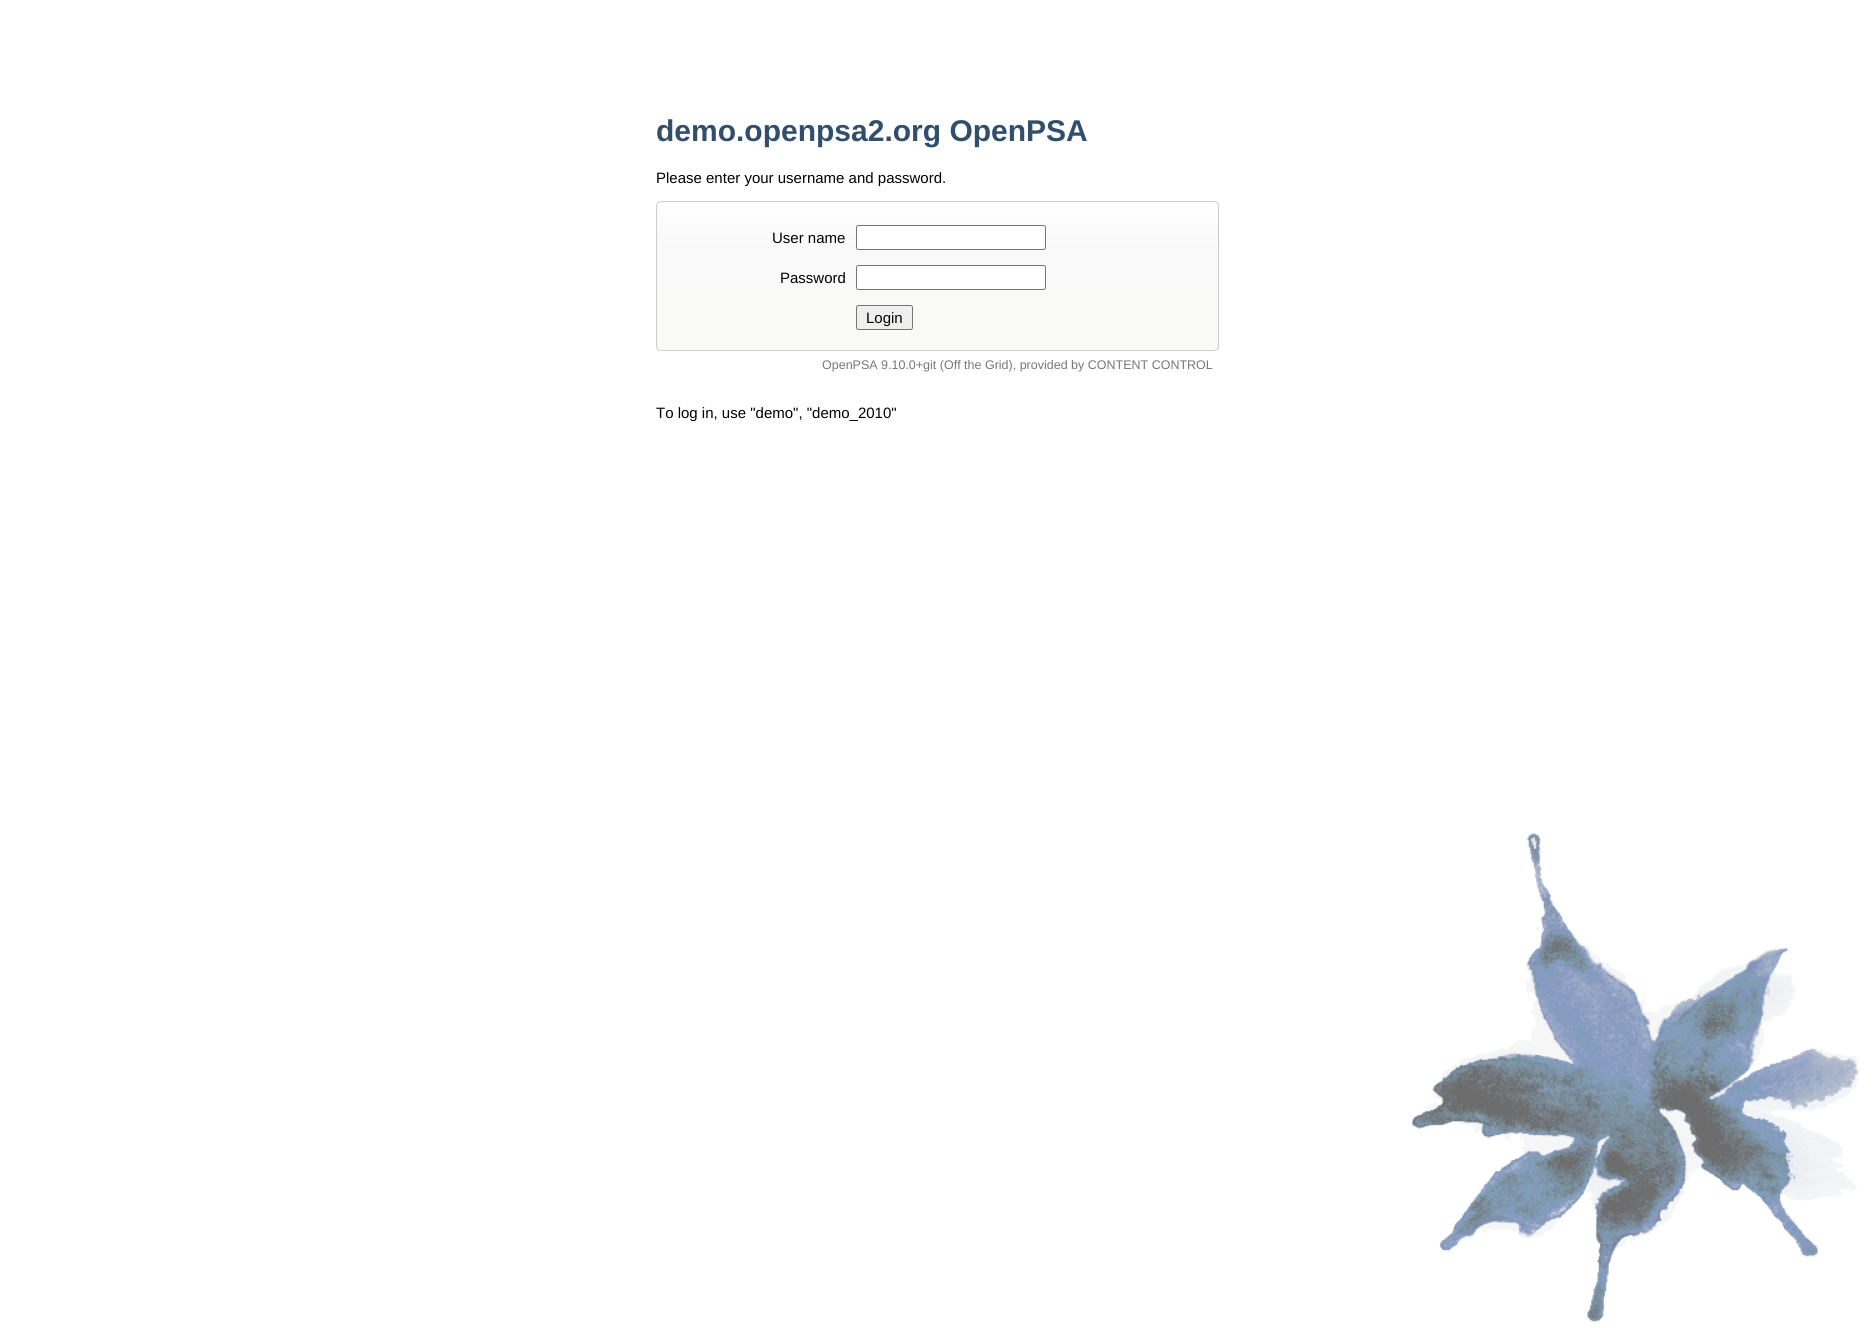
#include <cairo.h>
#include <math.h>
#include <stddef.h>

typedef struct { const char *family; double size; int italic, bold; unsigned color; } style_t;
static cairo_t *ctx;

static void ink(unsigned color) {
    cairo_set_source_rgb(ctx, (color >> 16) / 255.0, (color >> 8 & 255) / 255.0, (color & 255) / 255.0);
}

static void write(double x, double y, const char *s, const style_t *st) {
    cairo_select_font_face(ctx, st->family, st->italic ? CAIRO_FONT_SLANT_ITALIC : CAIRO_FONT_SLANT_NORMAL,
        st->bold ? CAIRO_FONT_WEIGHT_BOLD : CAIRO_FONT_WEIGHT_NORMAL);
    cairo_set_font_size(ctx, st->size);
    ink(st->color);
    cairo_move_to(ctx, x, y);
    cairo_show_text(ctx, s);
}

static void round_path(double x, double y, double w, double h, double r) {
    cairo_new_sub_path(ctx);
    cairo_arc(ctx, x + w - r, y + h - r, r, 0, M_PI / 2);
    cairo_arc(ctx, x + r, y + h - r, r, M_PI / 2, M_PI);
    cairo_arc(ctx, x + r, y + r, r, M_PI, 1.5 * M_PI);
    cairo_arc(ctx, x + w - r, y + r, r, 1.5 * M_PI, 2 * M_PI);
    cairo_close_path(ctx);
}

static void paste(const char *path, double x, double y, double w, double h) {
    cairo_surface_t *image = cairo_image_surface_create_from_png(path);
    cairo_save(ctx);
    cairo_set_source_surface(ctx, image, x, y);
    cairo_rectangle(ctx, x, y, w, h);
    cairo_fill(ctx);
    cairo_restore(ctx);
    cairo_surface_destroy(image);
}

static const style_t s1 = {"Liberation Sans", 30, 0, 1, 0x314e6c};
static const style_t s2 = {"Liberation Sans", 15, 0, 0, 0x000000};
static const style_t s3 = {"Liberation Sans", 12.5, 0, 0, 0x777777};

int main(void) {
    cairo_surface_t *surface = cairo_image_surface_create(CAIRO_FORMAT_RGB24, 1874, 1328);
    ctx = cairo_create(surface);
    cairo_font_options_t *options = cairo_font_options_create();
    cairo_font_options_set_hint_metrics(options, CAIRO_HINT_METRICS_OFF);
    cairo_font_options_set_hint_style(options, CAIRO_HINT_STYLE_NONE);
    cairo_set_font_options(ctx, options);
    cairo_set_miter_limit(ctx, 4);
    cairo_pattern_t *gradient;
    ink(0xffffff);
    cairo_paint(ctx);
    paste("pic1.png", 1412, 833, 448, 489);
    write(656, 141, "demo.openpsa2.org OpenPSA", &s1);
    write(656, 183, "Please enter your username and password.", &s2);
    cairo_save(ctx);
    round_path(656, 201, 563, 150, 5);
    cairo_clip(ctx);
    gradient = cairo_pattern_create_linear(938, 55, 938, 203);
    cairo_pattern_add_color_stop_rgba(gradient, 0, 1, 1, 1, 1);
    cairo_pattern_add_color_stop_rgba(gradient, 0.32, 0.976, 0.976, 0.976, 1);
    cairo_pattern_add_color_stop_rgba(gradient, 0.96, 0.976, 0.976, 0.973, 1);
    cairo_pattern_add_color_stop_rgba(gradient, 1, 0.988, 0.988, 0.988, 1);
    cairo_set_source(ctx, gradient);
    cairo_pattern_destroy(gradient);
    cairo_rectangle(ctx, 656, 201, 563, 2);
    cairo_fill(ctx);
    gradient = cairo_pattern_create_linear(938, 202, 938, 350);
    cairo_pattern_add_color_stop_rgba(gradient, 0, 1, 1, 1, 1);
    cairo_pattern_add_color_stop_rgba(gradient, 0.32, 0.976, 0.976, 0.976, 1);
    cairo_pattern_add_color_stop_rgba(gradient, 0.96, 0.976, 0.976, 0.973, 1);
    cairo_pattern_add_color_stop_rgba(gradient, 1, 0.988, 0.988, 0.988, 1);
    cairo_set_source(ctx, gradient);
    cairo_pattern_destroy(gradient);
    cairo_rectangle(ctx, 656, 203, 563, 147);
    cairo_fill(ctx);
    cairo_restore(ctx);
    round_path(656.5, 201.5, 562, 149, 4.5);
    ink(0xcccccc);
    cairo_set_line_width(ctx, 1);
    cairo_stroke(ctx);
    write(772, 243, "User name", &s2);
    ink(0xffffff);
    round_path(856.5, 225.5, 189, 24, 2);
    cairo_fill_preserve(ctx);
    ink(0x767676);
    cairo_stroke(ctx);
    write(780, 283, "Password", &s2);
    ink(0xffffff);
    round_path(856.5, 265.5, 189, 24, 2);
    cairo_fill_preserve(ctx);
    ink(0x767676);
    cairo_stroke(ctx);
    ink(0xefefef);
    round_path(856.5, 305.5, 56, 24, 2);
    cairo_fill_preserve(ctx);
    ink(0x767676);
    cairo_stroke(ctx);
    write(866, 323, "Login", &s2);
    write(822, 369, "OpenPSA 9.10.0+git (Off the Grid), provided by CONTENT CONTROL", &s3);
    write(656, 418, "To log in, use \"demo\", \"demo_2010\"", &s2);
    cairo_surface_write_to_png(surface, "screenshot.png");
    cairo_font_options_destroy(options);
    cairo_destroy(ctx);
    cairo_surface_destroy(surface);
    return 0;
}
